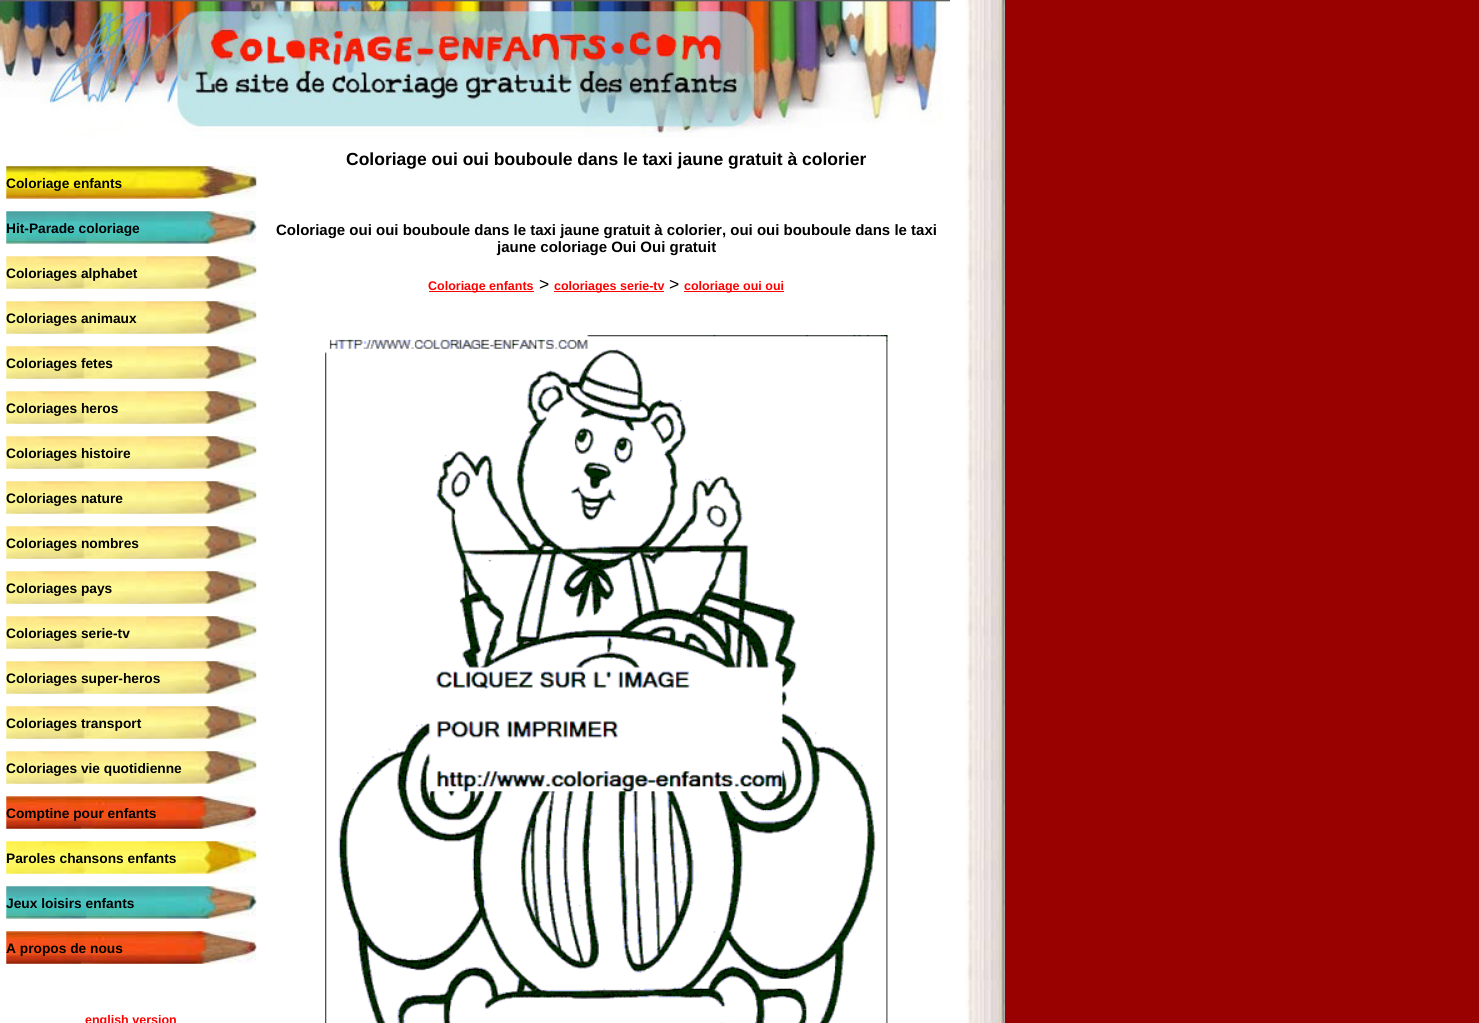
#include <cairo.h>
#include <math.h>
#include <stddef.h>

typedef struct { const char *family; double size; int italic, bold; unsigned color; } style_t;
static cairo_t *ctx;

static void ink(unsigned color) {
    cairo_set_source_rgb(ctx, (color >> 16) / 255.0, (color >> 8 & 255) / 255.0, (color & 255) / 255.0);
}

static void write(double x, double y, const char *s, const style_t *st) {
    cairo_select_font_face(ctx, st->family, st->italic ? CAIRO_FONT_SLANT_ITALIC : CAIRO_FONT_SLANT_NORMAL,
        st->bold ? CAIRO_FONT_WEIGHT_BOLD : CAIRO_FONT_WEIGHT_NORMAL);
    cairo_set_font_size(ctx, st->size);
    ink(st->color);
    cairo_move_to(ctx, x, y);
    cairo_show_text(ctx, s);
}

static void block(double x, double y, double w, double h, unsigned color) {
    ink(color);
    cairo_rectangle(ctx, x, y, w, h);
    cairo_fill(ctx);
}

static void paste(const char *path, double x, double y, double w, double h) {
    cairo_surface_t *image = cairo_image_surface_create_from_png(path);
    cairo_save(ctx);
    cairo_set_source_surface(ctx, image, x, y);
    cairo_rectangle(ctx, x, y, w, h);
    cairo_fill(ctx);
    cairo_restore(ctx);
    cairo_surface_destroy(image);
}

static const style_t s1 = {"Liberation Sans", 13.75, 0, 1, 0x000000};
static const style_t s2 = {"Liberation Sans", 12.5, 0, 1, 0xff0000};
static const style_t s3 = {"Liberation Sans", 17.5, 0, 1, 0x000000};
static const style_t s4 = {"Liberation Sans", 15, 0, 1, 0x000000};
static const style_t s5 = {"Liberation Sans", 17.5, 0, 0, 0x000000};

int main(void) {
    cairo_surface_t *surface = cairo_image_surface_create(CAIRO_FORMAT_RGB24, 1479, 1023);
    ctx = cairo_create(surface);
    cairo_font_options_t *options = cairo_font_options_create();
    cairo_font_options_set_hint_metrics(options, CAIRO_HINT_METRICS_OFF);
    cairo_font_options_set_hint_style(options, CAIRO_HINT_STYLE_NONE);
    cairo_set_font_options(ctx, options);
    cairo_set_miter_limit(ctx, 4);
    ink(0x990000);
    cairo_paint(ctx);
    block(0, 0, 965, 1023, 0xffffff);
    paste("pic1.png", 0, 0, 950, 138);
    paste("pic2.png", 6, 166, 251, 33);
    write(6, 188, "Coloriage enfants", &s1);
    paste("pic3.png", 6, 211, 251, 33);
    write(6, 233, "Hit-Parade coloriage", &s1);
    paste("pic4.png", 6, 256, 251, 33);
    write(6, 278, "Coloriages alphabet", &s1);
    paste("pic5.png", 6, 301, 251, 33);
    write(6, 323, "Coloriages animaux", &s1);
    paste("pic5.png", 6, 346, 251, 33);
    write(6, 368, "Coloriages fetes", &s1);
    paste("pic5.png", 6, 391, 251, 33);
    write(6, 413, "Coloriages heros", &s1);
    paste("pic5.png", 6, 436, 251, 33);
    write(6, 458, "Coloriages histoire", &s1);
    paste("pic5.png", 6, 481, 251, 33);
    write(6, 503, "Coloriages nature", &s1);
    paste("pic5.png", 6, 526, 251, 33);
    write(6, 548, "Coloriages nombres", &s1);
    paste("pic6.png", 6, 571, 251, 33);
    write(6, 593, "Coloriages pays", &s1);
    paste("pic5.png", 6, 616, 251, 33);
    write(6, 638, "Coloriages serie-tv", &s1);
    paste("pic5.png", 6, 661, 251, 33);
    write(6, 683, "Coloriages super-heros", &s1);
    paste("pic5.png", 6, 706, 251, 33);
    write(6, 728, "Coloriages transport", &s1);
    paste("pic5.png", 6, 751, 251, 33);
    write(6, 773, "Coloriages vie quotidienne", &s1);
    paste("pic7.png", 6, 796, 251, 33);
    write(6, 818, "Comptine pour enfants", &s1);
    paste("pic8.png", 6, 841, 251, 33);
    write(6, 863, "Paroles chansons enfants", &s1);
    paste("pic3.png", 6, 886, 251, 33);
    write(6, 908, "Jeux loisirs enfants", &s1);
    paste("pic7.png", 6, 931, 251, 33);
    write(6, 953, "A propos de nous", &s1);
    write(85, 1024, "english version", &s2);
    write(346, 165, "Coloriage oui oui bouboule dans le taxi jaune gratuit à colorier", &s3);
    write(276, 235, "Coloriage oui oui bouboule dans le taxi jaune gratuit à colorier, oui oui bouboule dans le taxi", &s4);
    write(497, 252, "jaune coloriage Oui Oui gratuit", &s4);
    block(429, 291, 105, 1, 0xff0000);
    write(428, 290, "Coloriage enfants", &s2);
    write(539, 290, ">", &s5);
    block(554, 291, 110, 1, 0xff0000);
    write(554, 290, "coloriages serie-tv", &s2);
    write(669, 290, ">", &s5);
    block(684, 291, 100, 1, 0xff0000);
    write(684, 290, "coloriage oui oui", &s2);
    paste("pic9.png", 325, 335, 563, 688);
    paste("pic10.png", 965, 0, 40, 1023);
    paste("pic11.png", 967, 556, 38, 100);
    cairo_surface_write_to_png(surface, "screenshot.png");
    cairo_font_options_destroy(options);
    cairo_destroy(ctx);
    cairo_surface_destroy(surface);
    return 0;
}
